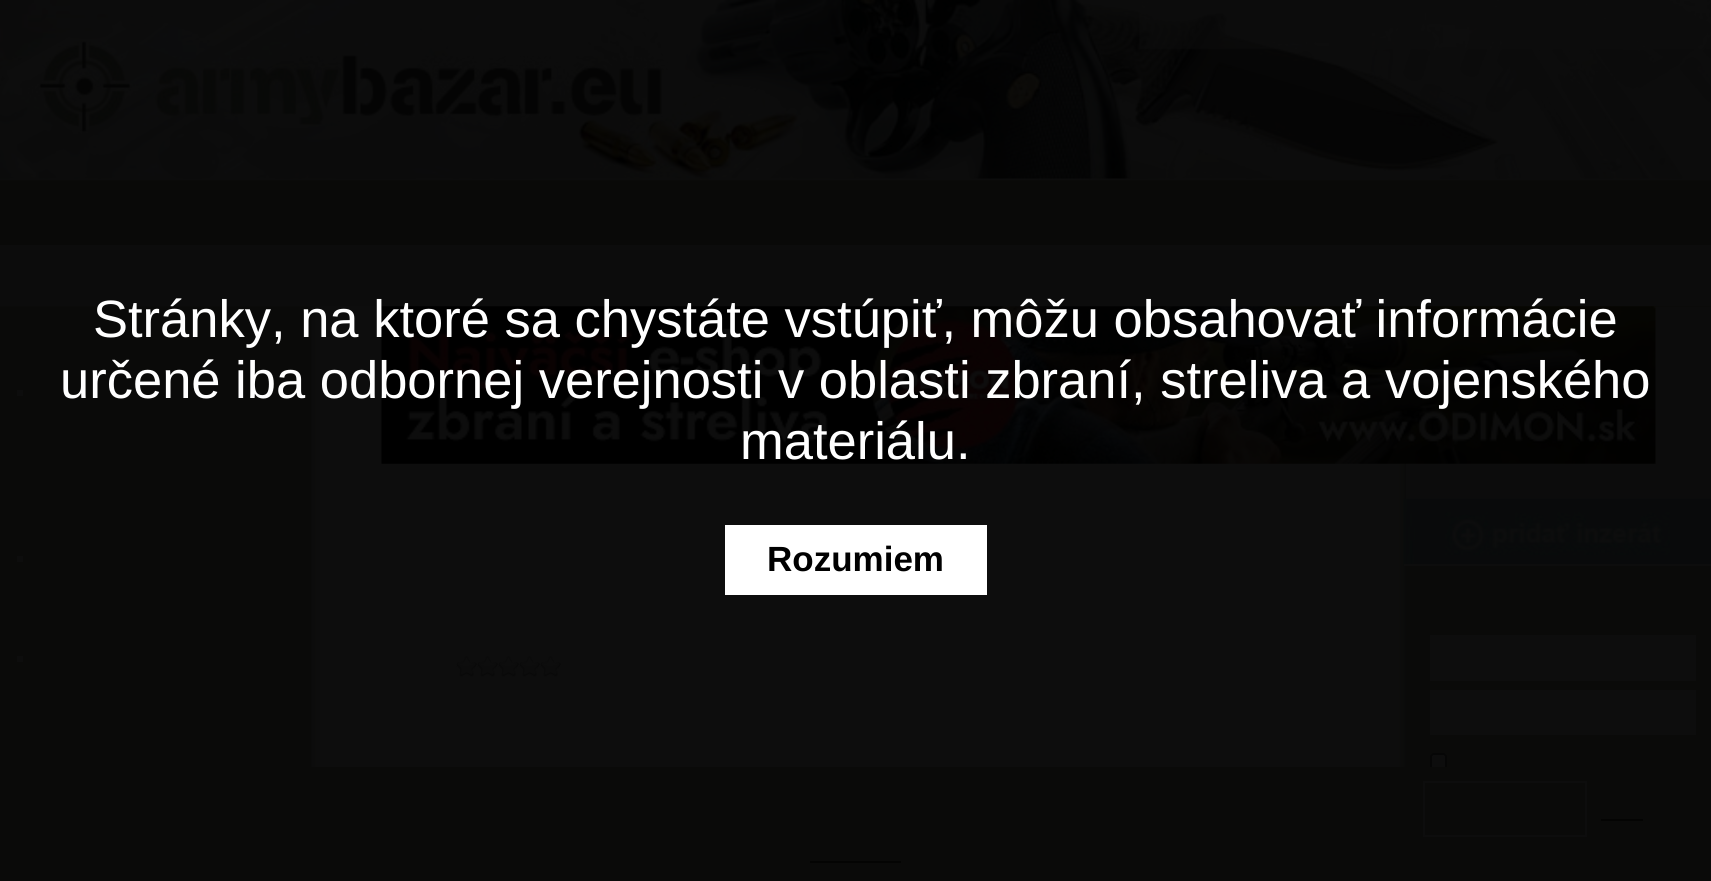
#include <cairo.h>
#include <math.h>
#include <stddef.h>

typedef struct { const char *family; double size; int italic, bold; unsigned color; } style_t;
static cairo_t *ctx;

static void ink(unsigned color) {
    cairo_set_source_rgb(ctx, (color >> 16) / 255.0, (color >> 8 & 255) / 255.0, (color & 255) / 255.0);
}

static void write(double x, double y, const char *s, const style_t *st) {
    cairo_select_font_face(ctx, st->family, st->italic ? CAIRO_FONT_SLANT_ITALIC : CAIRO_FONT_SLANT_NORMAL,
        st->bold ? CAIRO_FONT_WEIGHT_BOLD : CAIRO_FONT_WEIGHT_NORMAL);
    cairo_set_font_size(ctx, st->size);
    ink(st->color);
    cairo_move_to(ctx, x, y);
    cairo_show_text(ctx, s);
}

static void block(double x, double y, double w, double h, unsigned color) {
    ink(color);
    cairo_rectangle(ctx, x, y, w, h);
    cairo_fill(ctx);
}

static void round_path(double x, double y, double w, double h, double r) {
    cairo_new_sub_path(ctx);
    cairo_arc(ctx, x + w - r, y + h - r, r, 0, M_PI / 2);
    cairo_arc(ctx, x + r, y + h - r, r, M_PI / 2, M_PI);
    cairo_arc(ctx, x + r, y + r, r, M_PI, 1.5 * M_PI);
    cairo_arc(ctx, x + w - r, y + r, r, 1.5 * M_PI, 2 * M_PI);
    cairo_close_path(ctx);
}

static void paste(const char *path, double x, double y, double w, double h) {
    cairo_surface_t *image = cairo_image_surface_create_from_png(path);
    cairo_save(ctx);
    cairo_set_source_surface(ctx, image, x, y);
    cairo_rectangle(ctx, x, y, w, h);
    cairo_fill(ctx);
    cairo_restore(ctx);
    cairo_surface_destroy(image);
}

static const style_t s1 = {"Liberation Sans", 52.5, 0, 0, 0xffffff};
static const style_t s2 = {"Liberation Sans", 35, 0, 1, 0x000000};

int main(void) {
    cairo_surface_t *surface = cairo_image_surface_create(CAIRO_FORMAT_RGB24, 1711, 881);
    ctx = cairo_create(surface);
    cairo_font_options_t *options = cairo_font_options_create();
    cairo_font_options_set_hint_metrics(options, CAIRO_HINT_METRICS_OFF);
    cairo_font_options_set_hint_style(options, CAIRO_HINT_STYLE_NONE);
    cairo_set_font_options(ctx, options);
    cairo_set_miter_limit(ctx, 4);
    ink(0x0c0c0c);
    cairo_paint(ctx);
    block(0, 180, 1711, 65, 0x090908);
    paste("pic1.png", 0, 0, 1711, 181);
    paste("pic2.png", 0, 306, 1711, 461);
    block(1406, 307, 305, 192, 0x0c0c0c);
    paste("pic3.png", 381, 306, 1275, 158);
    write(93, 337, "Stránky, na ktoré sa chystáte vstúpiť, môžu obsahovať informácie", &s1);
    write(60, 398, "určené iba odbornej verejnosti v oblasti zbraní, streliva a vojenského", &s1);
    write(740, 459, "materiálu.", &s1);
    block(725, 525, 262, 70, 0xffffff);
    write(767, 571, "Rozumiem", &s2);
    block(17, 390, 6, 6, 0x0d0d0d);
    block(17, 556, 6, 6, 0x0d0d0d);
    block(17, 656, 6, 6, 0x0d0d0d);
    paste("pic4.png", 456, 656, 21, 21);
    paste("pic4.png", 477, 656, 21, 21);
    paste("pic4.png", 498, 656, 21, 21);
    paste("pic4.png", 519, 656, 21, 21);
    paste("pic4.png", 540, 656, 21, 21);
    paste("pic5.png", 1403, 498, 308, 68);
    block(1404, 564, 307, 2, 0x0d0d0d);
    block(1430, 635, 266, 46, 0x0d0d0d);
    block(1430, 690, 266, 45, 0x0d0d0d);
    round_path(1431, 754, 15, 15, 3);
    cairo_fill_preserve(ctx);
    ink(0x060606);
    cairo_stroke(ctx);
    block(0, 767, 1711, 114, 0x0a0a09);
    cairo_rectangle(ctx, 1424, 782, 162, 54);
    ink(0x0d0d0d);
    cairo_stroke(ctx);
    block(1601, 819, 42, 2, 0x040403);
    block(810, 861, 91, 2, 0x040403);
    cairo_surface_write_to_png(surface, "screenshot.png");
    cairo_font_options_destroy(options);
    cairo_destroy(ctx);
    cairo_surface_destroy(surface);
    return 0;
}
